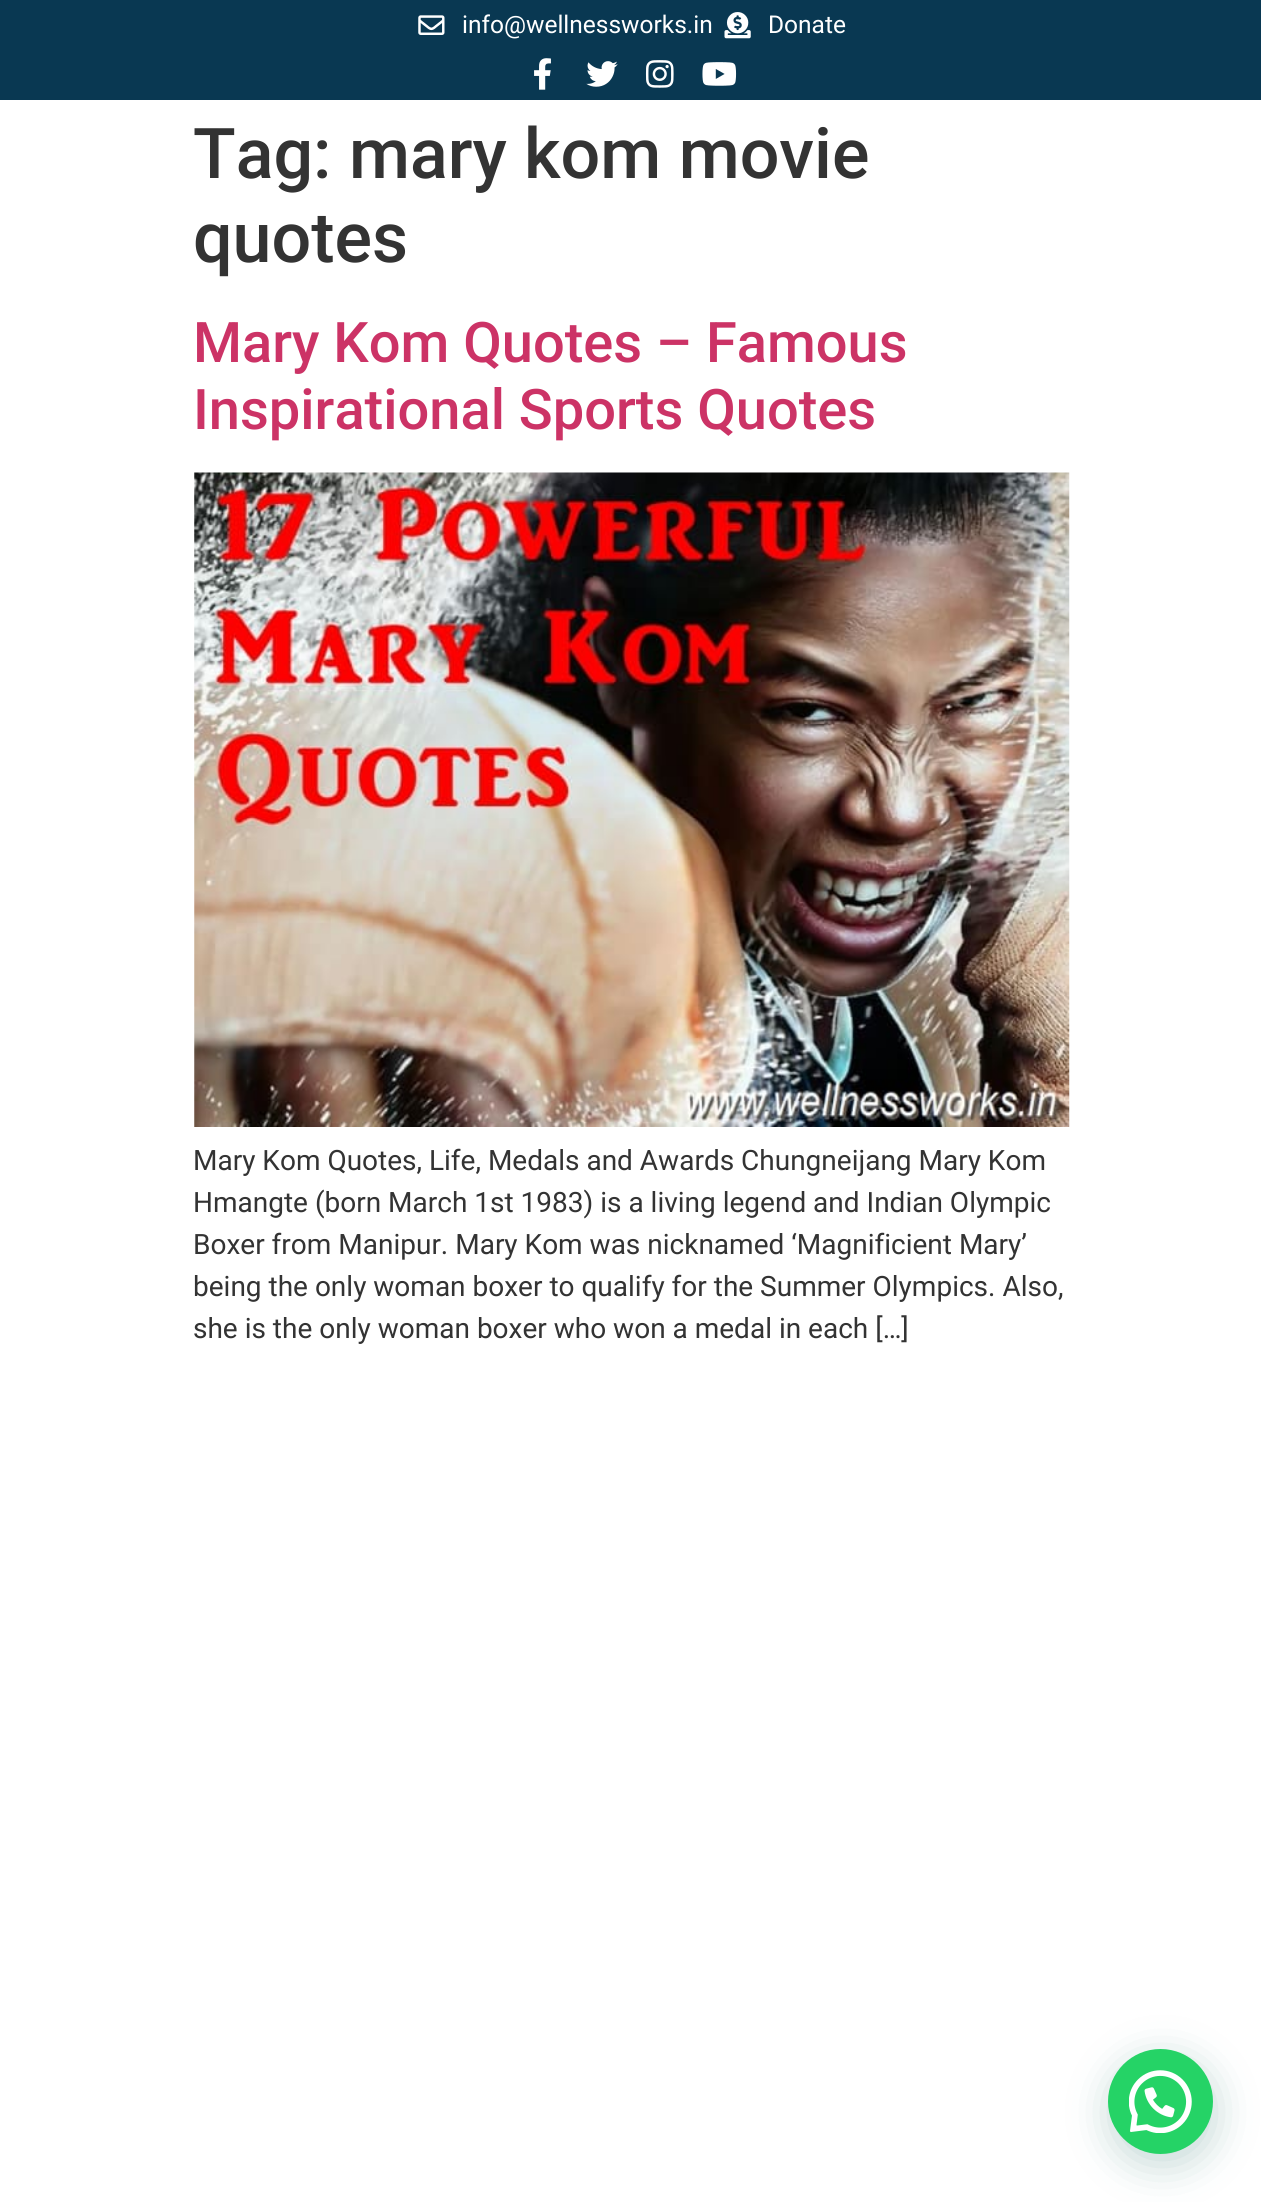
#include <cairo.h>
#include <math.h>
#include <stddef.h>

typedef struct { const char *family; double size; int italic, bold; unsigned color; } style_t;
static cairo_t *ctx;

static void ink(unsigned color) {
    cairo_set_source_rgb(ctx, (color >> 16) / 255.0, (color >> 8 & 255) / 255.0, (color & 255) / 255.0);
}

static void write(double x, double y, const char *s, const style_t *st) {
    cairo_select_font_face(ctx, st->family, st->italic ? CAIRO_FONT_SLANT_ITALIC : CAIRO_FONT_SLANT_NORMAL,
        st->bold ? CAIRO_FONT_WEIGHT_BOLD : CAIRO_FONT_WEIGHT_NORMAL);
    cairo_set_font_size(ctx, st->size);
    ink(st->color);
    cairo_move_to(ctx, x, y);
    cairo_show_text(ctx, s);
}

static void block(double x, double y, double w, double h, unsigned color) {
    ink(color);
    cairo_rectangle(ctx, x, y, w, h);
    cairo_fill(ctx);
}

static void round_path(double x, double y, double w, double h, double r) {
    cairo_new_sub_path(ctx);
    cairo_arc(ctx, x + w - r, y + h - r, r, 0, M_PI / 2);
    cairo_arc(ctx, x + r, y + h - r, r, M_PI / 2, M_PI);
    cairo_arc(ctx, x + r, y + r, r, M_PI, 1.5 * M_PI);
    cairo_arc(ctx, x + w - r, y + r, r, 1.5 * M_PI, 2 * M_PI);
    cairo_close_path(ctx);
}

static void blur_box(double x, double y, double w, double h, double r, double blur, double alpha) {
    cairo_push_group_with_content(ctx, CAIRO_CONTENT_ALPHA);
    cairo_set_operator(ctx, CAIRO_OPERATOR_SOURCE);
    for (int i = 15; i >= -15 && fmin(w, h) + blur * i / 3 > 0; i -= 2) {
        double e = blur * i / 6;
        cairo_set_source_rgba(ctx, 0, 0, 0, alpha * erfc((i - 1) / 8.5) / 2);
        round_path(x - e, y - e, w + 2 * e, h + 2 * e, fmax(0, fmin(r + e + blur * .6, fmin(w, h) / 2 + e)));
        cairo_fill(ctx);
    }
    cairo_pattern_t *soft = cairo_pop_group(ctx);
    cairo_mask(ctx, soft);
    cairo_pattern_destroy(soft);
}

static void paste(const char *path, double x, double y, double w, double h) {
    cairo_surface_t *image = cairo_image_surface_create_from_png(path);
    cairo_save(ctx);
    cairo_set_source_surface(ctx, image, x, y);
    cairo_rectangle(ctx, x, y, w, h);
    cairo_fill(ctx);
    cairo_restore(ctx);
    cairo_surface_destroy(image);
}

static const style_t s1 = {"Roboto", 24.5, 0, 0, 0xffffff};
static const style_t s2 = {"Roboto Medium", 70, 0, 0, 0x333333};
static const style_t s3 = {"Roboto Medium", 56, 0, 0, 0xcc3366};
static const style_t s4 = {"Roboto", 28, 0, 0, 0x333333};

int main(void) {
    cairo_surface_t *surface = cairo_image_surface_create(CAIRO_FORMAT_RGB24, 1261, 2202);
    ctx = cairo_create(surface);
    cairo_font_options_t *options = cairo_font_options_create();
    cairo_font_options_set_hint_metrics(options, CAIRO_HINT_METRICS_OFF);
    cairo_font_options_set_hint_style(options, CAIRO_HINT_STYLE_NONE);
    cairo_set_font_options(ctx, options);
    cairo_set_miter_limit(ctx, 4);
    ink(0xffffff);
    cairo_paint(ctx);
    block(0, 0, 1261, 100, 0x093852);
    paste("pic1.png", 418, 15, 27, 20);
    write(462, 33, "info@wellnessworks.in", &s1);
    paste("pic2.png", 724, 12, 27, 27);
    write(768, 33, "Donate", &s1);
    paste("pic3.png", 534, 58, 17, 32);
    paste("pic4.png", 586, 61, 32, 26);
    paste("pic5.png", 645, 60, 29, 28);
    paste("pic6.png", 702, 62, 35, 24);
    write(193, 178, "Tag: mary kom movie", &s2);
    write(193, 262, "quotes", &s2);
    write(193, 362, "Mary Kom Quotes – Famous", &s3);
    write(193, 429, "Inspirational Sports Quotes", &s3);
    paste("pic7.png", 194, 472, 876, 655);
    write(193, 1170, "Mary Kom Quotes, Life, Medals and Awards Chungneijang Mary Kom", &s4);
    write(193, 1212, "Hmangte (born March 1st 1983) is a living legend and Indian Olympic", &s4);
    write(193, 1254, "Boxer from Manipur. Mary Kom was nicknamed ‘Magnificient Mary’", &s4);
    write(193, 1296, "being the only woman boxer to qualify for the Summer Olympics. Also,", &s4);
    write(193, 1338, "she is the only woman boxer who won a medal in each […]", &s4);
    ink(0x075e54);
    blur_box(1110, 2060, 105, 105, 52.5, 21, 0.24);
    ink(0x25d366);
    cairo_arc(ctx, 1160.5, 2101.5, 52.5, 0, 2 * M_PI);
    cairo_fill(ctx);
    paste("pic8.png", 1129, 2070, 63, 63);
    cairo_surface_write_to_png(surface, "screenshot.png");
    cairo_font_options_destroy(options);
    cairo_destroy(ctx);
    cairo_surface_destroy(surface);
    return 0;
}
